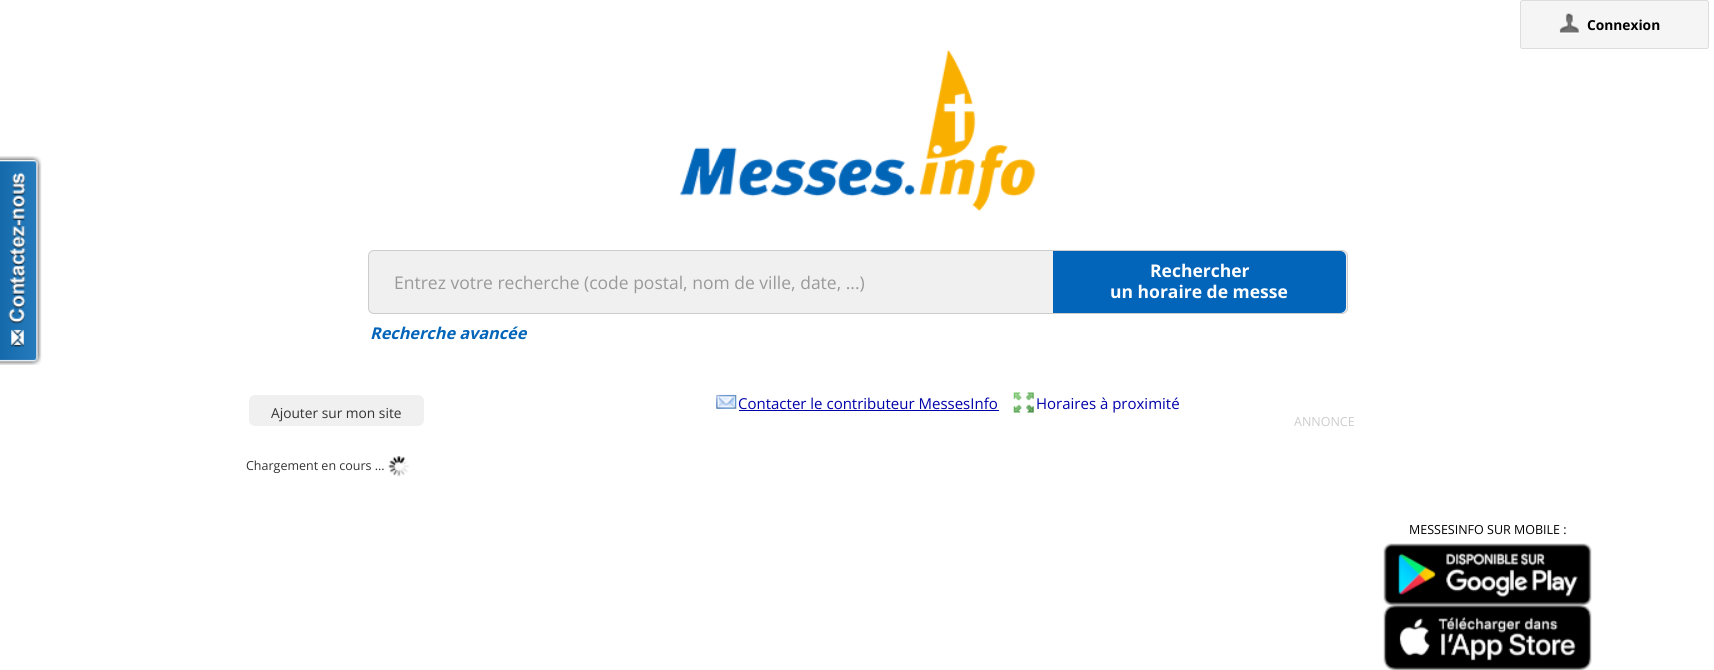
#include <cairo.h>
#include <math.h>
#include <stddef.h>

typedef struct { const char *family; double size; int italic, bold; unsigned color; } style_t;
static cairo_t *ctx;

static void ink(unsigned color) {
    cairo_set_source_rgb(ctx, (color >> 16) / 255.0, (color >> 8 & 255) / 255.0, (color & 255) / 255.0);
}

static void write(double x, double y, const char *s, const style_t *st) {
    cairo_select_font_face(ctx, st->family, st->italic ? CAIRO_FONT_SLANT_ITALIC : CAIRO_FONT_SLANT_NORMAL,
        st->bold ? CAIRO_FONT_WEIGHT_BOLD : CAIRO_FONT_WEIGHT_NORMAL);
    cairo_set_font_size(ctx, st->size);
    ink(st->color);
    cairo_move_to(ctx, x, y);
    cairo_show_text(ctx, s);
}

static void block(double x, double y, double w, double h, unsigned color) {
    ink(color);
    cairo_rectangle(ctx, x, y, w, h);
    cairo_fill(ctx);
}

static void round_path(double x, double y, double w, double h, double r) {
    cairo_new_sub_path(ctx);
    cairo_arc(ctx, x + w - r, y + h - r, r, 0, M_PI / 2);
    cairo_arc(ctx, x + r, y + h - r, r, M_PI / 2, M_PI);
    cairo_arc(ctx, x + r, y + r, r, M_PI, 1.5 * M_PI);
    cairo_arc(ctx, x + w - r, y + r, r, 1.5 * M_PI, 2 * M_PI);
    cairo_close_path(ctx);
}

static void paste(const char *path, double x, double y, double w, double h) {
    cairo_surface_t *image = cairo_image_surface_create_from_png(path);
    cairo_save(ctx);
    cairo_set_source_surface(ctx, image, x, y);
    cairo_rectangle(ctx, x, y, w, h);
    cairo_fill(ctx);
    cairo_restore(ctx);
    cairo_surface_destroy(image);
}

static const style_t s1 = {"Open Sans", 13.75, 0, 1, 0x000000};
static const style_t s2 = {"Open Sans", 17.5, 0, 0, 0x999999};
static const style_t s3 = {"Open Sans", 17.5, 0, 1, 0xffffff};
static const style_t s4 = {"Open Sans", 16.25, 1, 1, 0x0265ba};
static const style_t s5 = {"Open Sans", 15, 0, 0, 0x0000aa};
static const style_t s6 = {"Open Sans", 13.75, 0, 0, 0x353434};
static const style_t s7 = {"Open Sans", 12.5, 0, 0, 0x353434};
static const style_t s8 = {"Open Sans", 12.5, 0, 0, 0xcccccc};
static const style_t s9 = {"Open Sans", 12.5, 0, 0, 0x000000};

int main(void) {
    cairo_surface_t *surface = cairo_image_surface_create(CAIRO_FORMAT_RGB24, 1714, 670);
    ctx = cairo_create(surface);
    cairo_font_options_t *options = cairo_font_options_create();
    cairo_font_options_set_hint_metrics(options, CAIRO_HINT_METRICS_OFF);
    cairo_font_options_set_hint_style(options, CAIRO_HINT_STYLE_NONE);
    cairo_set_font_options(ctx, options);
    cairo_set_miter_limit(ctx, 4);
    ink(0xffffff);
    cairo_paint(ctx);
    ink(0xf5f5f5);
    round_path(1520, 0, 189, 49, 2.5);
    cairo_fill(ctx);
    round_path(1520.5, 0.5, 188, 48, 2);
    cairo_set_source_rgba(ctx, 0, 0, 0, 0.1);
    cairo_set_line_width(ctx, 1);
    cairo_stroke(ctx);
    paste("pic1.png", 1559, 13, 20, 21);
    write(1587, 30, "Connexion", &s1);
    paste("pic2.png", 679, 50, 357, 162);
    paste("pic3.png", 0, 156, 42, 209);
    ink(0xf0f0f0);
    round_path(368.5, 250.5, 979, 63, 5.5);
    cairo_fill_preserve(ctx);
    ink(0xcccccc);
    cairo_stroke(ctx);
    write(394, 289, "Entrez votre recherche (code postal, nom de ville, date, ...)", &s2);
    ink(0x0265ba);
    cairo_new_path(ctx);
    cairo_move_to(ctx, 1053, 251);
    cairo_line_to(ctx, 1340, 251);
    cairo_curve_to(ctx, 1343.5, 251, 1346, 253.5, 1346, 257);
    cairo_line_to(ctx, 1346, 307);
    cairo_curve_to(ctx, 1346, 310.5, 1343.5, 313, 1340, 313);
    cairo_line_to(ctx, 1053, 313);
    cairo_close_path(ctx);
    cairo_fill(ctx);
    write(1150, 277, "Rechercher", &s3);
    write(1110, 298, "un horaire de messe", &s3);
    write(370, 339, "Recherche avancée", &s4);
    paste("pic4.png", 716, 394, 21, 15);
    write(738, 409, "Contacter le contributeur MessesInfo", &s5);
    block(739, 410, 260, 1, 0x0000aa);
    paste("pic5.png", 1013, 392, 21, 21);
    write(1036, 409, "Horaires à proximité", &s5);
    ink(0xf0f0f0);
    round_path(249, 395, 175, 31, 6);
    cairo_fill(ctx);
    write(271, 418, "Ajouter sur mon site", &s6);
    write(246, 470, "Chargement en cours ...", &s7);
    paste("pic6.png", 388, 456, 21, 21);
    write(1294, 426, "ANNONCE", &s8);
    write(1409, 534, "MESSESINFO SUR MOBILE :", &s9);
    paste("pic7.png", 1383, 543, 209, 62);
    paste("pic8.png", 1383, 605, 209, 65);
    cairo_surface_write_to_png(surface, "screenshot.png");
    cairo_font_options_destroy(options);
    cairo_destroy(ctx);
    cairo_surface_destroy(surface);
    return 0;
}
